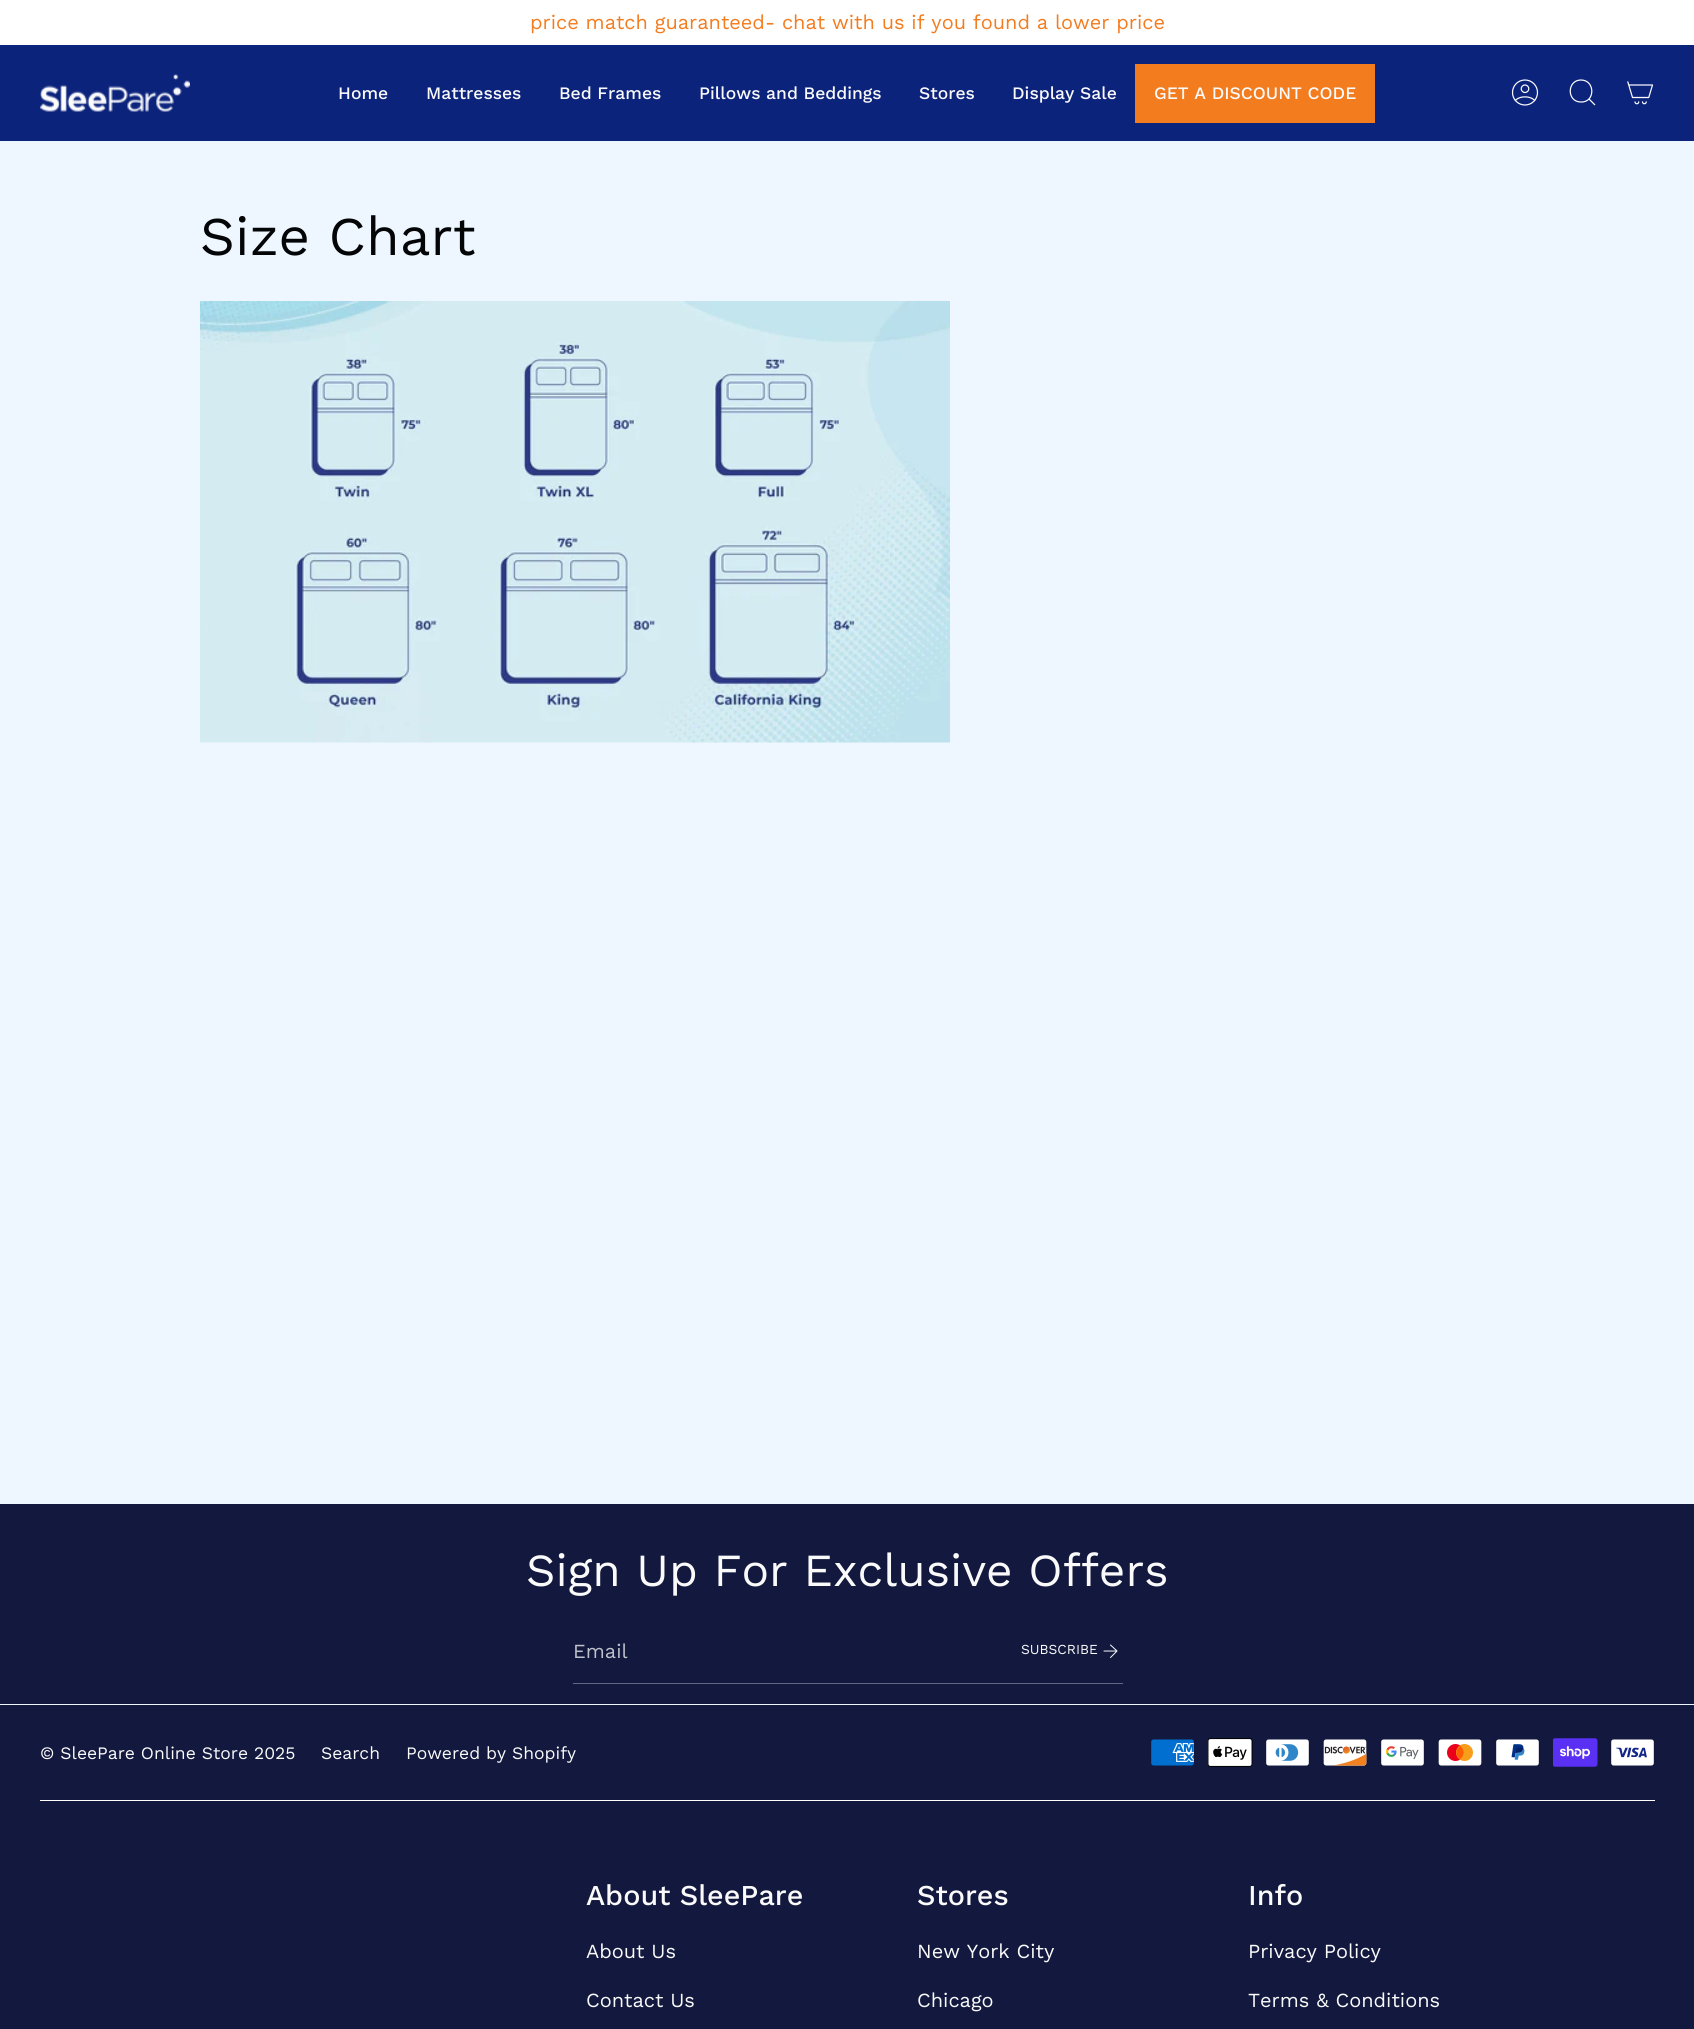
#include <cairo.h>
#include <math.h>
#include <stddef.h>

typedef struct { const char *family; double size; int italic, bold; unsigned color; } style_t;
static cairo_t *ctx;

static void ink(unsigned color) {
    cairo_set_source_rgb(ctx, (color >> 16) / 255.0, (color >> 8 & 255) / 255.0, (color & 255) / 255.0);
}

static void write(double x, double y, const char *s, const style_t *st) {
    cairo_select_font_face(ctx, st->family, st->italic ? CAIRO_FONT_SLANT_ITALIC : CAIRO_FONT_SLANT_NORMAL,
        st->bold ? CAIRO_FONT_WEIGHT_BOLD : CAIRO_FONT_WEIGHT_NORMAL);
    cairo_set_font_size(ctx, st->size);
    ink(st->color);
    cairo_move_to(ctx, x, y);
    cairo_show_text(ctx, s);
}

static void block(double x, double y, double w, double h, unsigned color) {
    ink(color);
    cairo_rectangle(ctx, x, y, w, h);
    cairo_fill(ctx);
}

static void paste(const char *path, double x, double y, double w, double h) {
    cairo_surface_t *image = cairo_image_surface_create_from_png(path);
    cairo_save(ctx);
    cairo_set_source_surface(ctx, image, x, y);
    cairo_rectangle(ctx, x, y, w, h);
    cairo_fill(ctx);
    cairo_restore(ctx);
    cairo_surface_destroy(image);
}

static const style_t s1 = {"Work Sans", 20, 0, 0, 0xf37c1f};
static const style_t s2 = {"Work Sans Medium", 17.5, 0, 0, 0xfafafa};
static const style_t s3 = {"Work Sans", 54.5, 0, 0, 0x040506};
static const style_t s4 = {"Work Sans", 46, 0, 0, 0xfafafa};
static const style_t s5 = {"Work Sans", 20, 0, 0, 0xc0c2cb};
static const style_t s6 = {"Work Sans", 13.75, 0, 0, 0xfafafa};
static const style_t s7 = {"Work Sans", 17.5, 0, 0, 0xfafafa};
static const style_t s8 = {"Work Sans Medium", 28.75, 0, 0, 0xfafafa};
static const style_t s9 = {"Work Sans", 20, 0, 0, 0xfafafa};

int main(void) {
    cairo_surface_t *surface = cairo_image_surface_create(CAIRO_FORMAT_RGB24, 1694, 2029);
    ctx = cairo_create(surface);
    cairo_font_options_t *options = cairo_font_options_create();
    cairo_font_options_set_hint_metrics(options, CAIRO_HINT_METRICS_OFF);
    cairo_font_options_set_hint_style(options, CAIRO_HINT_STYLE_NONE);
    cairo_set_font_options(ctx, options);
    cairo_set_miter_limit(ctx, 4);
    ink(0xeef7ff);
    cairo_paint(ctx);
    block(0, 0, 1694, 45, 0xffffff);
    write(530, 29, "price match guaranteed- chat with us if you found a lower price", &s1);
    block(0, 45, 1694, 96, 0x0c237c);
    paste("pic1.png", 40, 74, 150, 38);
    write(338, 99, "Home", &s2);
    write(426, 99, "Mattresses", &s2);
    write(559, 99, "Bed Frames", &s2);
    write(699, 99, "Pillows and Beddings", &s2);
    write(919, 99, "Stores", &s2);
    write(1012, 99, "Display Sale", &s2);
    block(1135, 64, 240, 59, 0xf37c1f);
    write(1154, 99, "GET A DISCOUNT CODE", &s2);
    paste("pic2.png", 1511, 79, 28, 27);
    cairo_new_path(ctx);
    cairo_move_to(ctx, 1581, 80);
    cairo_curve_to(ctx, 1595.5, 80, 1595.5, 103, 1580.5, 102);
    cairo_curve_to(ctx, 1566.5, 101.5, 1567, 80, 1581, 80);
    cairo_close_path(ctx);
    cairo_move_to(ctx, 1589, 99);
    cairo_line_to(ctx, 1595, 105);
    ink(0xffffff);
    cairo_set_line_width(ctx, 1.2);
    cairo_stroke(ctx);
    paste("pic3.png", 1627, 81, 27, 24);
    write(200, 255, "Size Chart", &s3);
    paste("pic4.png", 200, 301, 750, 442);
    block(0, 1504, 1694, 200, 0x12183e);
    write(526, 1586, "Sign Up For Exclusive Offers", &s4);
    block(573, 1683, 550, 1, 0x636780);
    write(573, 1658, "Email", &s5);
    write(1021, 1654, "SUBSCRIBE", &s6);
    cairo_new_path(ctx);
    cairo_move_to(ctx, 1104, 1651);
    cairo_line_to(ctx, 1117, 1651);
    cairo_move_to(ctx, 1117, 1651);
    cairo_line_to(ctx, 1110.5, 1645);
    cairo_move_to(ctx, 1117, 1651);
    cairo_line_to(ctx, 1110.5, 1657.5);
    cairo_set_line_width(ctx, 1);
    cairo_set_line_cap(ctx, CAIRO_LINE_CAP_ROUND);
    cairo_set_line_join(ctx, CAIRO_LINE_JOIN_ROUND);
    cairo_stroke(ctx);
    block(0, 1705, 1694, 324, 0x12183e);
    write(40, 1759, "© SleePare Online Store 2025", &s7);
    write(321, 1759, "Search", &s7);
    write(406, 1759, "Powered by Shopify", &s7);
    paste("pic5.png", 1150, 1739, 45, 27);
    paste("pic6.png", 1208, 1738, 45, 29);
    paste("pic7.png", 1265, 1739, 45, 27);
    paste("pic8.png", 1323, 1739, 44, 27);
    paste("pic9.png", 1380, 1739, 45, 27);
    paste("pic10.png", 1438, 1739, 44, 27);
    paste("pic11.png", 1495, 1739, 45, 27);
    paste("pic12.png", 1553, 1738, 45, 29);
    paste("pic13.png", 1610, 1739, 45, 27);
    block(40, 1800, 1615, 1, 0xffffff);
    write(586, 1905, "About SleePare", &s8);
    write(586, 1958, "About Us", &s9);
    write(586, 2007, "Contact Us", &s9);
    write(917, 1905, "Stores", &s8);
    write(917, 1958, "New York City", &s9);
    write(917, 2007, "Chicago", &s9);
    write(1248, 1905, "Info", &s8);
    write(1248, 1958, "Privacy Policy", &s9);
    write(1248, 2007, "Terms & Conditions", &s9);
    cairo_surface_write_to_png(surface, "screenshot.png");
    cairo_font_options_destroy(options);
    cairo_destroy(ctx);
    cairo_surface_destroy(surface);
    return 0;
}
